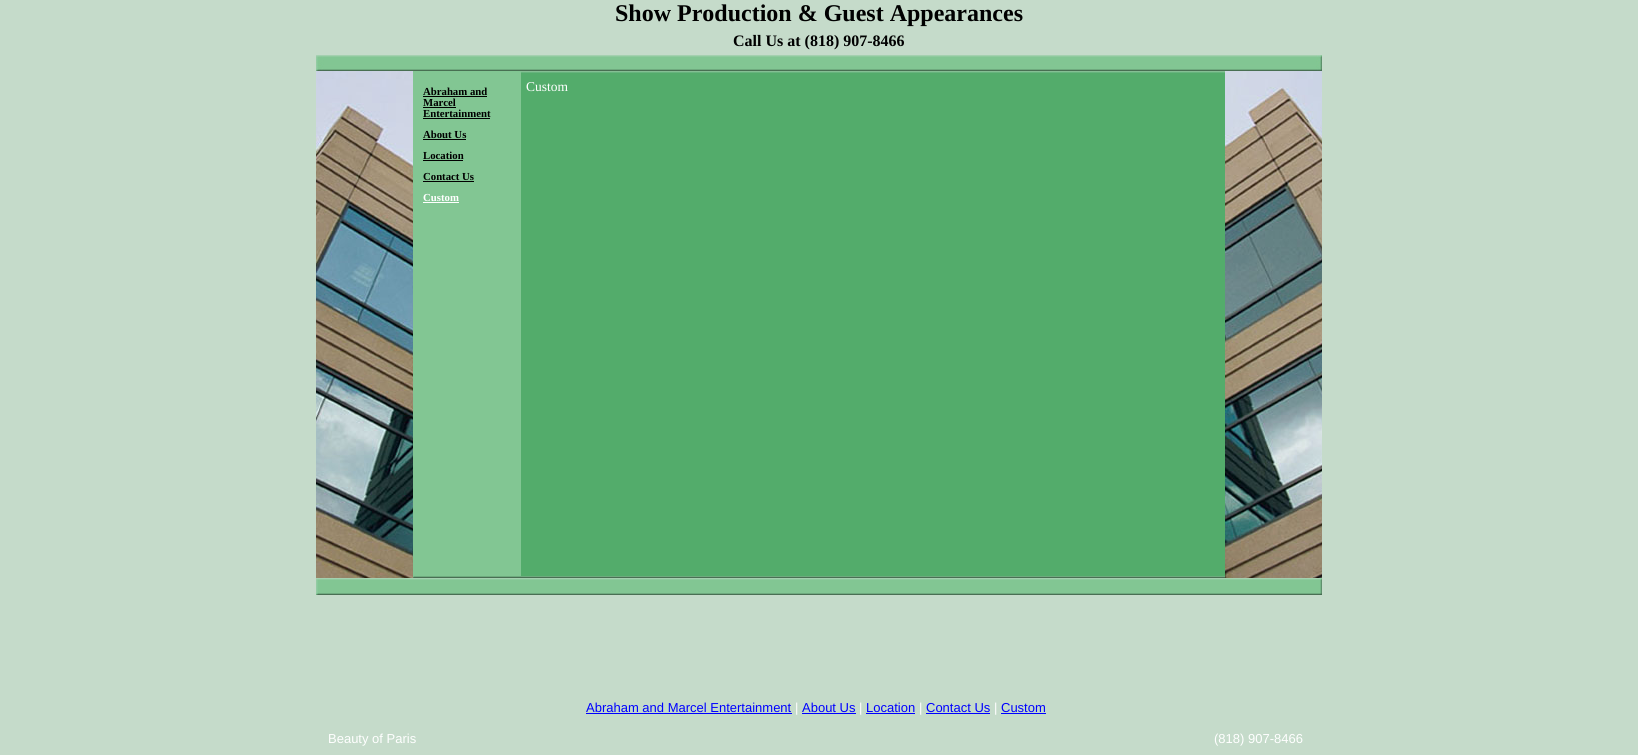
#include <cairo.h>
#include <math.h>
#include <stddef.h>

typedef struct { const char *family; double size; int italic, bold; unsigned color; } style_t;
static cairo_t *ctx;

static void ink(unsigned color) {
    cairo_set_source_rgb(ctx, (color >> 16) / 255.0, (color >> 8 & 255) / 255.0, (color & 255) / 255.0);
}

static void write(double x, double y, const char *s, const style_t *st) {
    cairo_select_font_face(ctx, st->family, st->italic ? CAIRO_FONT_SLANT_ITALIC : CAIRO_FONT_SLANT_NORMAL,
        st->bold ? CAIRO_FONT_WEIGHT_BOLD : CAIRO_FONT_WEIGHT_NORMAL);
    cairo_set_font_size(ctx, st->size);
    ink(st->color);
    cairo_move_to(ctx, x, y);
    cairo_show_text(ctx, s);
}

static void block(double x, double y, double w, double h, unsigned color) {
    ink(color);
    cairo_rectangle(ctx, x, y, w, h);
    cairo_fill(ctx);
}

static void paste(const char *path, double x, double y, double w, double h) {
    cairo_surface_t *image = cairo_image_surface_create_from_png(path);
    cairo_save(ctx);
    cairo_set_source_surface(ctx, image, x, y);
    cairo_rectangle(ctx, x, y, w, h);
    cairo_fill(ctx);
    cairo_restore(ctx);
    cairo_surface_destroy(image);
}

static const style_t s1 = {"Liberation Serif", 24, 0, 1, 0x000000};
static const style_t s2 = {"Liberation Serif", 16, 0, 1, 0x000000};
static const style_t s3 = {"Liberation Serif", 10.75, 0, 1, 0x000000};
static const style_t s4 = {"Liberation Serif", 10.75, 0, 1, 0xffffff};
static const style_t s5 = {"Liberation Serif", 13.5, 0, 0, 0xffffff};
static const style_t s6 = {"Liberation Sans", 13, 0, 0, 0x0000ff};
static const style_t s7 = {"Liberation Sans", 13, 0, 0, 0xffffff};

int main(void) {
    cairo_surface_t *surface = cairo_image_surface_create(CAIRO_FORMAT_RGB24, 1638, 755);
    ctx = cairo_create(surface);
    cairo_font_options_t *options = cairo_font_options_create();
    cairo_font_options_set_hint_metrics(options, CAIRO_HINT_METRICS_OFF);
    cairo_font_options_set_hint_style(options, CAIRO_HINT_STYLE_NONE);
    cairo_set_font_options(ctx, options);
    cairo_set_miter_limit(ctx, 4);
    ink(0xc5dbca);
    cairo_paint(ctx);
    write(615, 21, "Show Production & Guest Appearances", &s1);
    write(733, 46, "Call Us at (818) 907-8466", &s2);
    paste("pic1.png", 316, 55, 1006, 16);
    paste("pic2.png", 316, 71, 97, 507);
    paste("pic3.png", 316, 578, 97, 17);
    block(413, 71, 108, 505, 0x82c693);
    write(423, 95, "Abraham and", &s3);
    block(423, 96, 64, 1, 0x000000);
    write(423, 106, "Marcel", &s3);
    block(423, 107, 33, 1, 0x000000);
    write(423, 117, "Entertainment", &s3);
    block(423, 118, 67, 1, 0x000000);
    write(423, 138, "About Us", &s3);
    block(423, 139, 43, 1, 0x000000);
    write(423, 159, "Location", &s3);
    block(423, 160, 40, 1, 0x000000);
    write(423, 180, "Contact Us", &s3);
    block(423, 181, 51, 1, 0x000000);
    write(423, 201, "Custom", &s4);
    block(423, 202, 36, 1, 0xffffff);
    paste("pic4.png", 521, 71, 704, 8);
    block(521, 79, 704, 497, 0x53ac6b);
    write(526, 91, "Custom", &s5);
    paste("pic5.png", 413, 576, 108, 19);
    paste("pic6.png", 521, 576, 704, 19);
    paste("pic7.png", 1225, 71, 97, 507);
    paste("pic8.png", 1225, 578, 97, 17);
    write(586, 712, "Abraham and Marcel Entertainment", &s6);
    block(586, 713, 206, 1, 0x0000ff);
    write(795, 712, "|", &s7);
    write(802, 712, "About Us", &s6);
    block(802, 713, 54, 1, 0x0000ff);
    write(859, 712, "|", &s7);
    write(866, 712, "Location", &s6);
    block(866, 713, 49, 1, 0x0000ff);
    write(919, 712, "|", &s7);
    write(926, 712, "Contact Us", &s6);
    block(926, 713, 64, 1, 0x0000ff);
    write(994, 712, "|", &s7);
    write(1001, 712, "Custom", &s6);
    block(1001, 713, 45, 1, 0x0000ff);
    write(328, 743, "Beauty of Paris", &s7);
    write(1214, 743, "(818) 907-8466", &s7);
    cairo_surface_write_to_png(surface, "screenshot.png");
    cairo_font_options_destroy(options);
    cairo_destroy(ctx);
    cairo_surface_destroy(surface);
    return 0;
}
